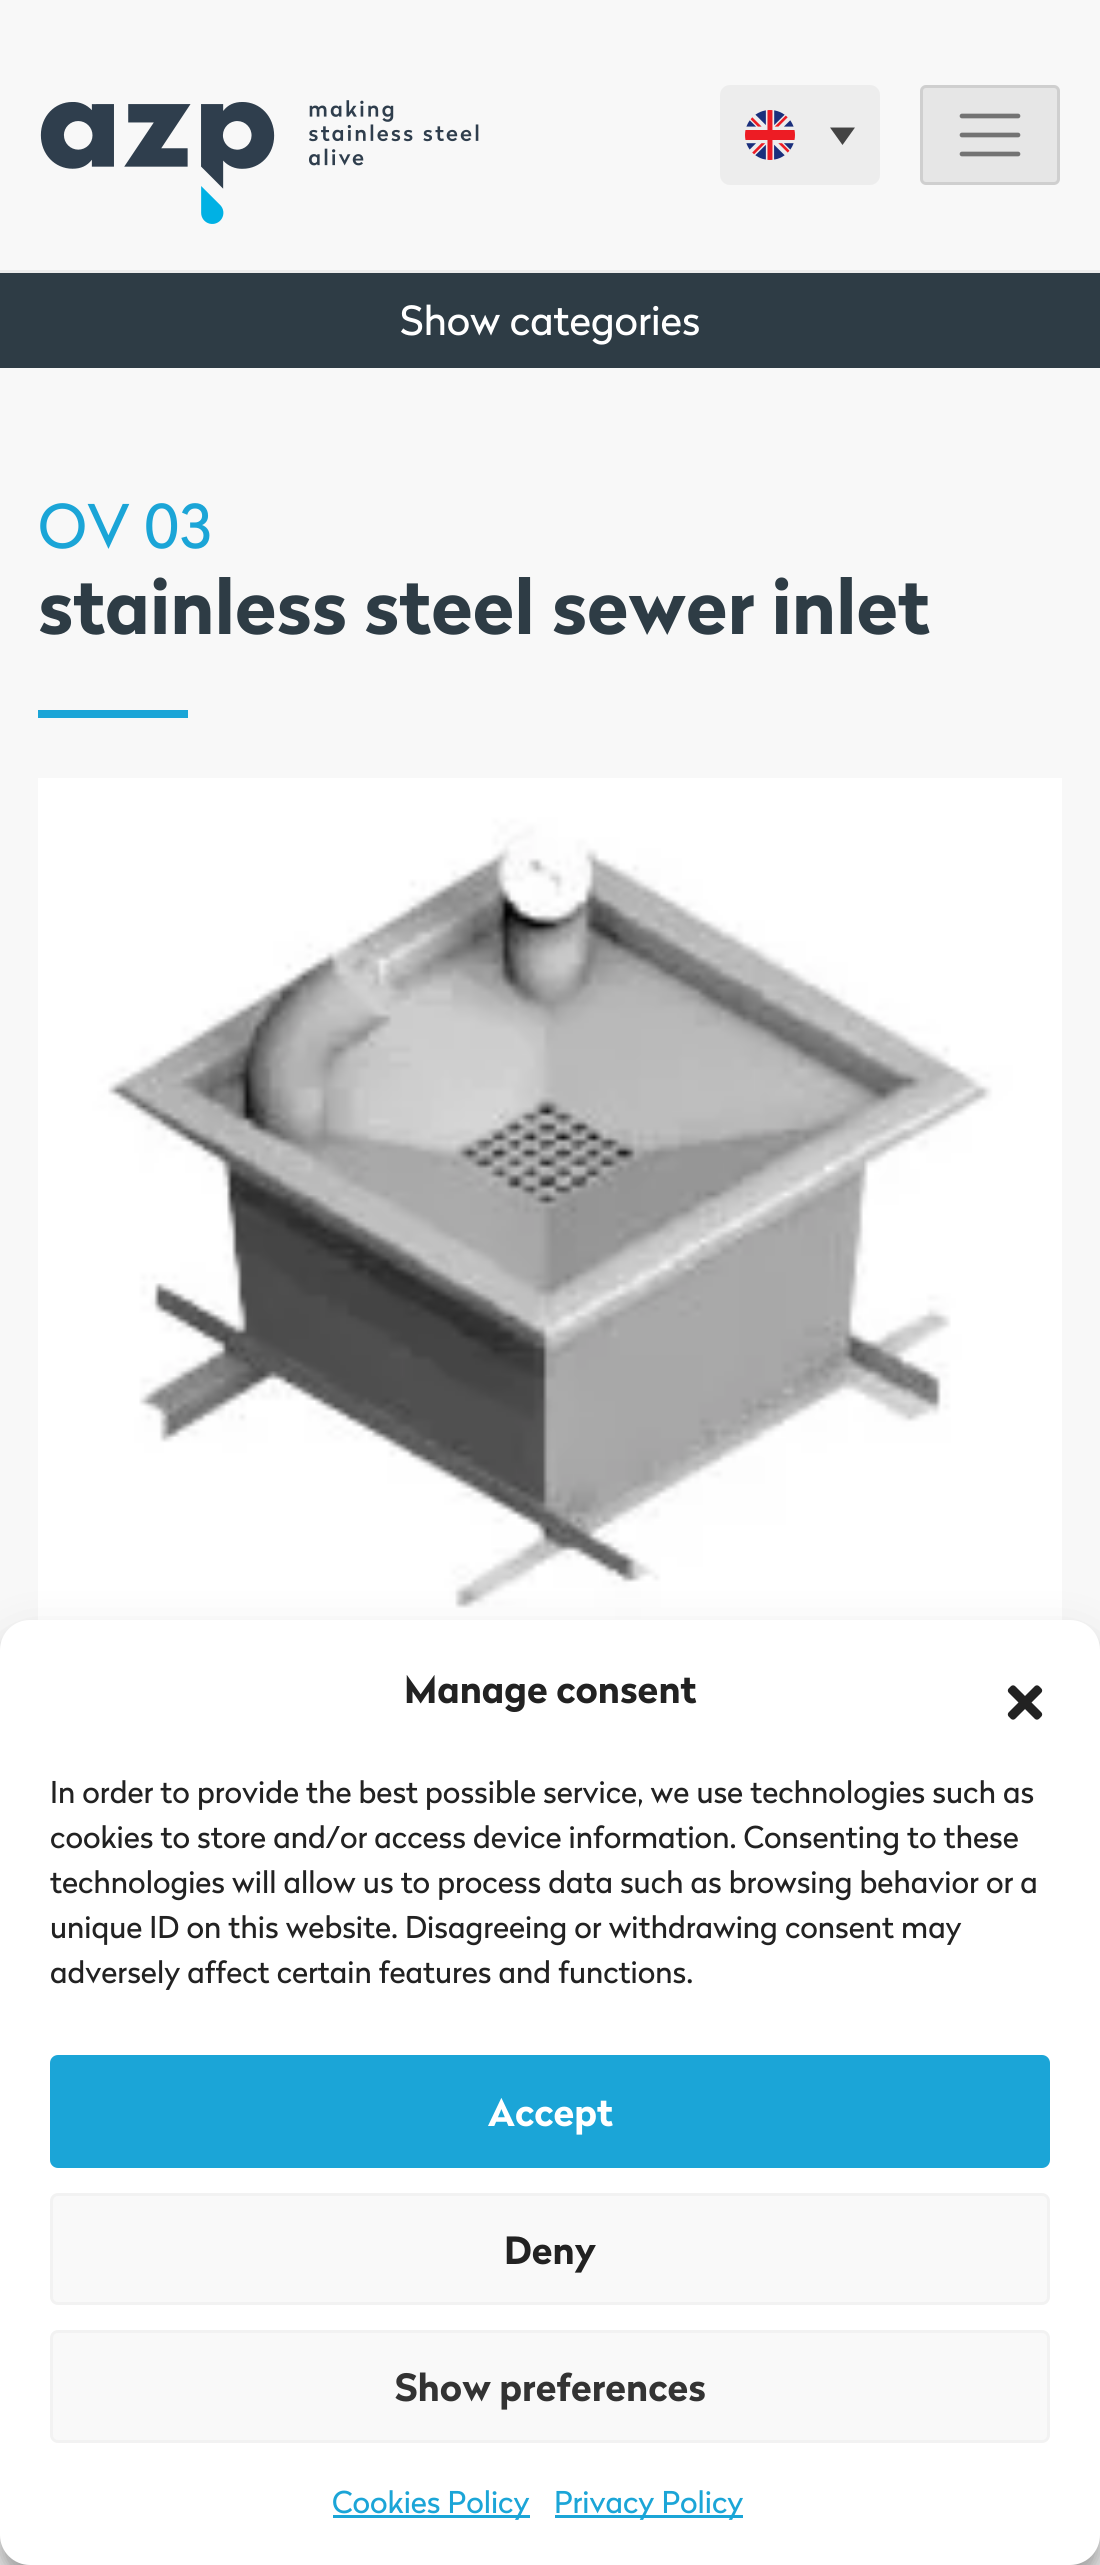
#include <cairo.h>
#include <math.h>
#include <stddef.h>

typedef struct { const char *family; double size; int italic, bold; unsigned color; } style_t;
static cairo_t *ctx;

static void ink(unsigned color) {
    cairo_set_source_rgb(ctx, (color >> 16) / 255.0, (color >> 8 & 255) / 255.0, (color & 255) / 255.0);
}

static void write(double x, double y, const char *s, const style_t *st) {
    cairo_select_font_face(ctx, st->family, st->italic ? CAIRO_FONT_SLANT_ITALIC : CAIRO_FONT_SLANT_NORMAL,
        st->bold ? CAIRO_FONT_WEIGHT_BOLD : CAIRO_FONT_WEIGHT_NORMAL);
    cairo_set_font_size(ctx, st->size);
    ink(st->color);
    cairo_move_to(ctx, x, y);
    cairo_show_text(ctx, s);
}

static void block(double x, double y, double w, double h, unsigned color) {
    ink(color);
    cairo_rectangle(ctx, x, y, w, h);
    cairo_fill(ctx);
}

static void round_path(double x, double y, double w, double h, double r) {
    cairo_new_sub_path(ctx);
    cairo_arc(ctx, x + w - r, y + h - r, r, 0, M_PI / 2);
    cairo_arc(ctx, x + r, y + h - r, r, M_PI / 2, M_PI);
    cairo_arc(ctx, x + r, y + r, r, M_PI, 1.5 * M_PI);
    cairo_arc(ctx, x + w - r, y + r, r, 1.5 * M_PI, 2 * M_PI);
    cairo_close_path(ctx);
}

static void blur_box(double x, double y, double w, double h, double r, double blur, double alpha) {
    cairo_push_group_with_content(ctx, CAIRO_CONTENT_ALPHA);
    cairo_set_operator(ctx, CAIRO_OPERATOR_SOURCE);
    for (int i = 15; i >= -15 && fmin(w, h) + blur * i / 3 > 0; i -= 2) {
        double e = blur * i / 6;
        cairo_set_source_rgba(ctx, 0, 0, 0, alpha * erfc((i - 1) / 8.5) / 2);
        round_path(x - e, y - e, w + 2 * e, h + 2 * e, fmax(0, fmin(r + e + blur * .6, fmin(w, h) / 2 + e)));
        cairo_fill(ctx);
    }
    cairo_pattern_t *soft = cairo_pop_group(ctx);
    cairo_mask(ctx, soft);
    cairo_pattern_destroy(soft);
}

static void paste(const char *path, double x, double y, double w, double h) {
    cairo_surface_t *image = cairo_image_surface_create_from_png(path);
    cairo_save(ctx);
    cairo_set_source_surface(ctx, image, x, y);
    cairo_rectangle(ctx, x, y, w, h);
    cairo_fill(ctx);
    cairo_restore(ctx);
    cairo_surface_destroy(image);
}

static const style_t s1 = {"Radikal", 40, 0, 0, 0xffffff};
static const style_t s2 = {"Radikal", 60, 0, 0, 0x1ba5d7};
static const style_t s3 = {"Radikal", 75, 0, 1, 0x2e3c45};
static const style_t s4 = {"Radikal", 37.5, 0, 1, 0x222222};
static const style_t s5 = {"Radikal", 30, 0, 0, 0x222222};
static const style_t s6 = {"Radikal", 37.5, 0, 1, 0xffffff};
static const style_t s7 = {"Radikal", 37.5, 0, 1, 0x333333};
static const style_t s8 = {"Radikal", 30, 0, 0, 0x1ba5d7};

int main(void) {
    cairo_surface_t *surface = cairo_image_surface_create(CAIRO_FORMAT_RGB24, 1100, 2565);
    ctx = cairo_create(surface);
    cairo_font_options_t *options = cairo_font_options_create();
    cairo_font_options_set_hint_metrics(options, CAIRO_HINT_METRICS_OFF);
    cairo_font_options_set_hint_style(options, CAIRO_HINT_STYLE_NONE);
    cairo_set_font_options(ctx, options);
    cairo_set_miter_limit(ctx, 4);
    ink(0xf8f8f8);
    cairo_paint(ctx);
    block(0, 270, 1100, 3, 0xebebeb);
    paste("pic1.png", 40, 100, 439, 124);
    ink(0xededed);
    round_path(720, 85, 160, 100, 10);
    cairo_fill(ctx);
    paste("pic2.png", 745, 110, 50, 50);
    ink(0x444444);
    cairo_new_path(ctx);
    cairo_move_to(ctx, 830, 127.5);
    cairo_line_to(ctx, 855, 127.5);
    cairo_line_to(ctx, 842.5, 145);
    cairo_close_path(ctx);
    cairo_fill(ctx);
    ink(0xe6e6e6);
    round_path(920, 85, 140, 100, 6);
    cairo_fill(ctx);
    round_path(921.5, 86.5, 137, 97, 4.5);
    cairo_set_source_rgba(ctx, 0, 0, 0, 0.1);
    cairo_set_line_width(ctx, 3);
    cairo_stroke(ctx);
    cairo_new_path(ctx);
    cairo_move_to(ctx, 962, 116);
    cairo_line_to(ctx, 1018, 116);
    cairo_move_to(ctx, 962, 135);
    cairo_line_to(ctx, 1018, 135);
    cairo_move_to(ctx, 962, 154);
    cairo_line_to(ctx, 1018, 154);
    ink(0x737373);
    cairo_set_line_width(ctx, 4.7);
    cairo_set_line_cap(ctx, CAIRO_LINE_CAP_ROUND);
    cairo_stroke(ctx);
    block(0, 273, 1100, 95, 0x2e3c45);
    write(400, 335, "Show categories", &s1);
    write(38, 548, "OV 03", &s2);
    write(38, 634, "stainless steel sewer inlet", &s3);
    block(38, 710, 150, 8, 0x1ba5d7);
    paste("pic3.png", 38, 778, 1024, 842);
    ink(0x000000);
    blur_box(0, 1635, 1100, 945, 30, 7.5, 0.23);
    blur_box(0, 1645, 1100, 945, 30, 25, 0.19);
    ink(0x808080);
    blur_box(925, 2380, 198, 150, 5, 6, 1);
    ink(0xffffff);
    round_path(0, 1620, 1100, 945, 30);
    cairo_fill(ctx);
    write(404, 1703, "Manage consent", &s4);
    paste("pic4.png", 1007, 1685, 36, 35);
    write(50, 1803, "In order to provide the best possible service, we use technologies such as", &s5);
    write(50, 1848, "cookies to store and/or access device information. Consenting to these", &s5);
    write(50, 1893, "technologies will allow us to process data such as browsing behavior or a", &s5);
    write(50, 1938, "unique ID on this website. Disagreeing or withdrawing consent may", &s5);
    write(50, 1983, "adversely affect certain features and functions.", &s5);
    ink(0x1ba5d7);
    round_path(51.5, 2056.5, 997, 110, 6.5);
    cairo_fill_preserve(ctx);
    cairo_set_line_width(ctx, 3);
    cairo_set_line_cap(ctx, CAIRO_LINE_CAP_BUTT);
    cairo_stroke(ctx);
    write(488, 2126, "Accept", &s6);
    ink(0xf9f9f9);
    round_path(51.5, 2194.5, 997, 109, 6.5);
    cairo_fill_preserve(ctx);
    ink(0xf2f2f2);
    cairo_stroke(ctx);
    write(504, 2264, "Deny", &s4);
    ink(0xf9f9f9);
    round_path(51.5, 2331.5, 997, 110, 6.5);
    cairo_fill_preserve(ctx);
    ink(0xf2f2f2);
    cairo_stroke(ctx);
    write(395, 2401, "Show preferences", &s7);
    block(333, 2515, 197, 3, 0x1ba5d7);
    write(332, 2513, "Cookies Policy", &s8);
    block(555, 2515, 188, 3, 0x1ba5d7);
    write(554, 2513, "Privacy Policy", &s8);
    cairo_surface_write_to_png(surface, "screenshot.png");
    cairo_font_options_destroy(options);
    cairo_destroy(ctx);
    cairo_surface_destroy(surface);
    return 0;
}
